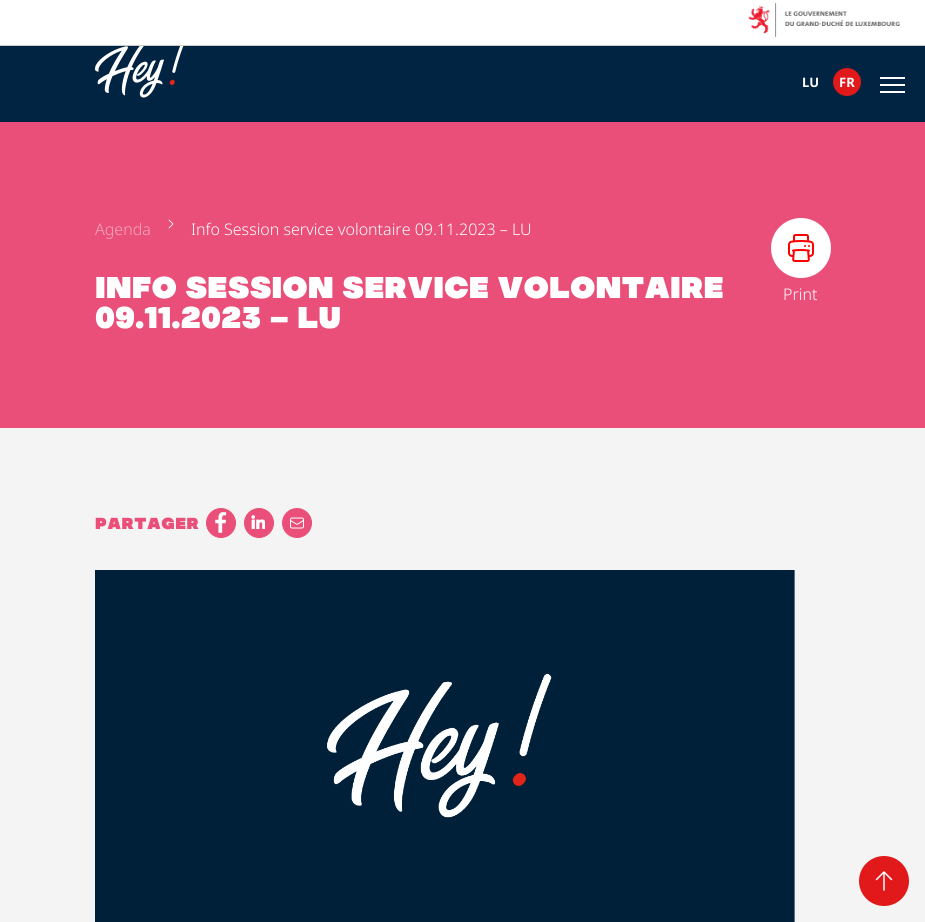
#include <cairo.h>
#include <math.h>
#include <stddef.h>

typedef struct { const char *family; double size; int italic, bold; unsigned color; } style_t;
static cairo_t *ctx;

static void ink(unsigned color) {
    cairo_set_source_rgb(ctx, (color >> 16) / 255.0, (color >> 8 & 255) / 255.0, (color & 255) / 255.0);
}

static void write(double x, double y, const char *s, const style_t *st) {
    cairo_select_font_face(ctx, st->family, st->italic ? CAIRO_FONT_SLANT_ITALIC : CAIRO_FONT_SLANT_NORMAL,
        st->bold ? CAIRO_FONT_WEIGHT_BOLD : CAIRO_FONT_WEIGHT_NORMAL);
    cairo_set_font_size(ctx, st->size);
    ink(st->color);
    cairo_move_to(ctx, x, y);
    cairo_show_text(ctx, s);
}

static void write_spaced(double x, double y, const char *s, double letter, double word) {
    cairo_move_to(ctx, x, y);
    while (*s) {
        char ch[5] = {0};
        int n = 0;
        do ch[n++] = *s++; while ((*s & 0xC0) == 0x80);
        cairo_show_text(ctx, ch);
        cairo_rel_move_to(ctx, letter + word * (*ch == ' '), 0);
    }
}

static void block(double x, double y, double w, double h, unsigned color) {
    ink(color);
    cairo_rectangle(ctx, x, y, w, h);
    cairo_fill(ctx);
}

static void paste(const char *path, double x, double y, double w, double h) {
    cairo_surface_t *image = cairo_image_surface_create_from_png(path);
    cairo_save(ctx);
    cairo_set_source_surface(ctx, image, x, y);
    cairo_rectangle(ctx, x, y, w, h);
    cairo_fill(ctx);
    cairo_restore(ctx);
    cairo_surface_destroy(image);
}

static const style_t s1 = {"Noto Sans", 13, 0, 1, 0xffffff};
static const style_t s2 = {"Noto Sans Light", 16, 0, 0, 0xf4a7bc};
static const style_t s3 = {"Noto Sans Light", 16, 0, 0, 0xffffff};
static const style_t s4 = {"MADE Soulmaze", 30, 0, 0, 0xffffff};

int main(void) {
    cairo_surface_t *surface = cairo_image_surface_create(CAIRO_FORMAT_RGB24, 925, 922);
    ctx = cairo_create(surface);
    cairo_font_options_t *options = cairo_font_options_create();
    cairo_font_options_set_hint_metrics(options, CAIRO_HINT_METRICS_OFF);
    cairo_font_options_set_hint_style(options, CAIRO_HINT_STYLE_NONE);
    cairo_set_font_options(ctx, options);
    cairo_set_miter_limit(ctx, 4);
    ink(0xf4f4f4);
    cairo_paint(ctx);
    block(0, 0, 925, 45, 0xffffff);
    block(0, 45, 925, 1, 0xcccaca);
    paste("pic1.png", 748, 3, 152, 34);
    block(0, 46, 925, 76, 0x002441);
    paste("pic2.png", 95, 46, 89, 52);
    write(802, 87, "LU", &s1);
    ink(0xe2191a);
    cairo_new_path(ctx);
    cairo_arc(ctx, 847, 82, 14, 0, 2 * M_PI);
    cairo_fill(ctx);
    write(839, 87, "FR", &s1);
    block(880, 84, 25, 2, 0xffffff);
    block(880, 77, 25, 2, 0xffffff);
    block(880, 91, 25, 2, 0xffffff);
    block(0, 122, 925, 306, 0xe94f78);
    write(95, 235, "Agenda", &s2);
    cairo_new_path(ctx);
    cairo_move_to(ctx, 169, 220);
    cairo_line_to(ctx, 173, 224);
    cairo_line_to(ctx, 169, 228);
    ink(0xffffff);
    cairo_set_line_width(ctx, 0.8);
    cairo_set_line_cap(ctx, CAIRO_LINE_CAP_ROUND);
    cairo_set_line_join(ctx, CAIRO_LINE_JOIN_ROUND);
    cairo_stroke(ctx);
    write(191, 235, "Info Session service volontaire 09.11.2023 – LU", &s3);
    write(95, 298, "INFO SESSION SERVICE VOLONTAIRE", &s4);
    write(95, 328, "09.11.2023 – LU", &s4);
    cairo_new_path(ctx);
    cairo_arc(ctx, 801, 248, 30, 0, 2 * M_PI);
    cairo_fill(ctx);
    paste("pic3.png", 788, 234, 26, 28);
    write(783, 300, "Print", &s3);
    cairo_select_font_face(ctx, "MADE Soulmaze", CAIRO_FONT_SLANT_NORMAL, CAIRO_FONT_WEIGHT_NORMAL);
    ink(0xe94f78);
    write_spaced(95, 529, "PARTAGER", 0.5, 0);
    cairo_new_path(ctx);
    cairo_arc(ctx, 221, 523, 14.5, 0, 2 * M_PI);
    cairo_fill_preserve(ctx);
    cairo_set_line_width(ctx, 1);
    cairo_set_line_cap(ctx, CAIRO_LINE_CAP_BUTT);
    cairo_set_line_join(ctx, CAIRO_LINE_JOIN_MITER);
    cairo_stroke(ctx);
    paste("pic4.png", 215, 512, 12, 21);
    cairo_arc(ctx, 259, 523, 14.5, 0, 2 * M_PI);
    cairo_fill_preserve(ctx);
    cairo_stroke(ctx);
    paste("pic5.png", 251, 515, 14, 14);
    cairo_arc(ctx, 297, 523, 14.5, 0, 2 * M_PI);
    cairo_fill_preserve(ctx);
    cairo_stroke(ctx);
    paste("pic6.png", 290, 517, 14, 12);
    paste("pic7.png", 95, 570, 700, 352);
    ink(0xe2191a);
    cairo_arc(ctx, 884, 881, 25, 0, 2 * M_PI);
    cairo_fill(ctx);
    cairo_new_path(ctx);
    cairo_move_to(ctx, 876.5, 879.5);
    cairo_line_to(ctx, 884, 872);
    cairo_move_to(ctx, 884, 872);
    cairo_line_to(ctx, 891.5, 879.5);
    cairo_move_to(ctx, 884, 872);
    cairo_line_to(ctx, 884, 890);
    ink(0xffffff);
    cairo_set_line_width(ctx, 1.5);
    cairo_set_line_cap(ctx, CAIRO_LINE_CAP_ROUND);
    cairo_set_line_join(ctx, CAIRO_LINE_JOIN_ROUND);
    cairo_stroke(ctx);
    cairo_surface_write_to_png(surface, "screenshot.png");
    cairo_font_options_destroy(options);
    cairo_destroy(ctx);
    cairo_surface_destroy(surface);
    return 0;
}
